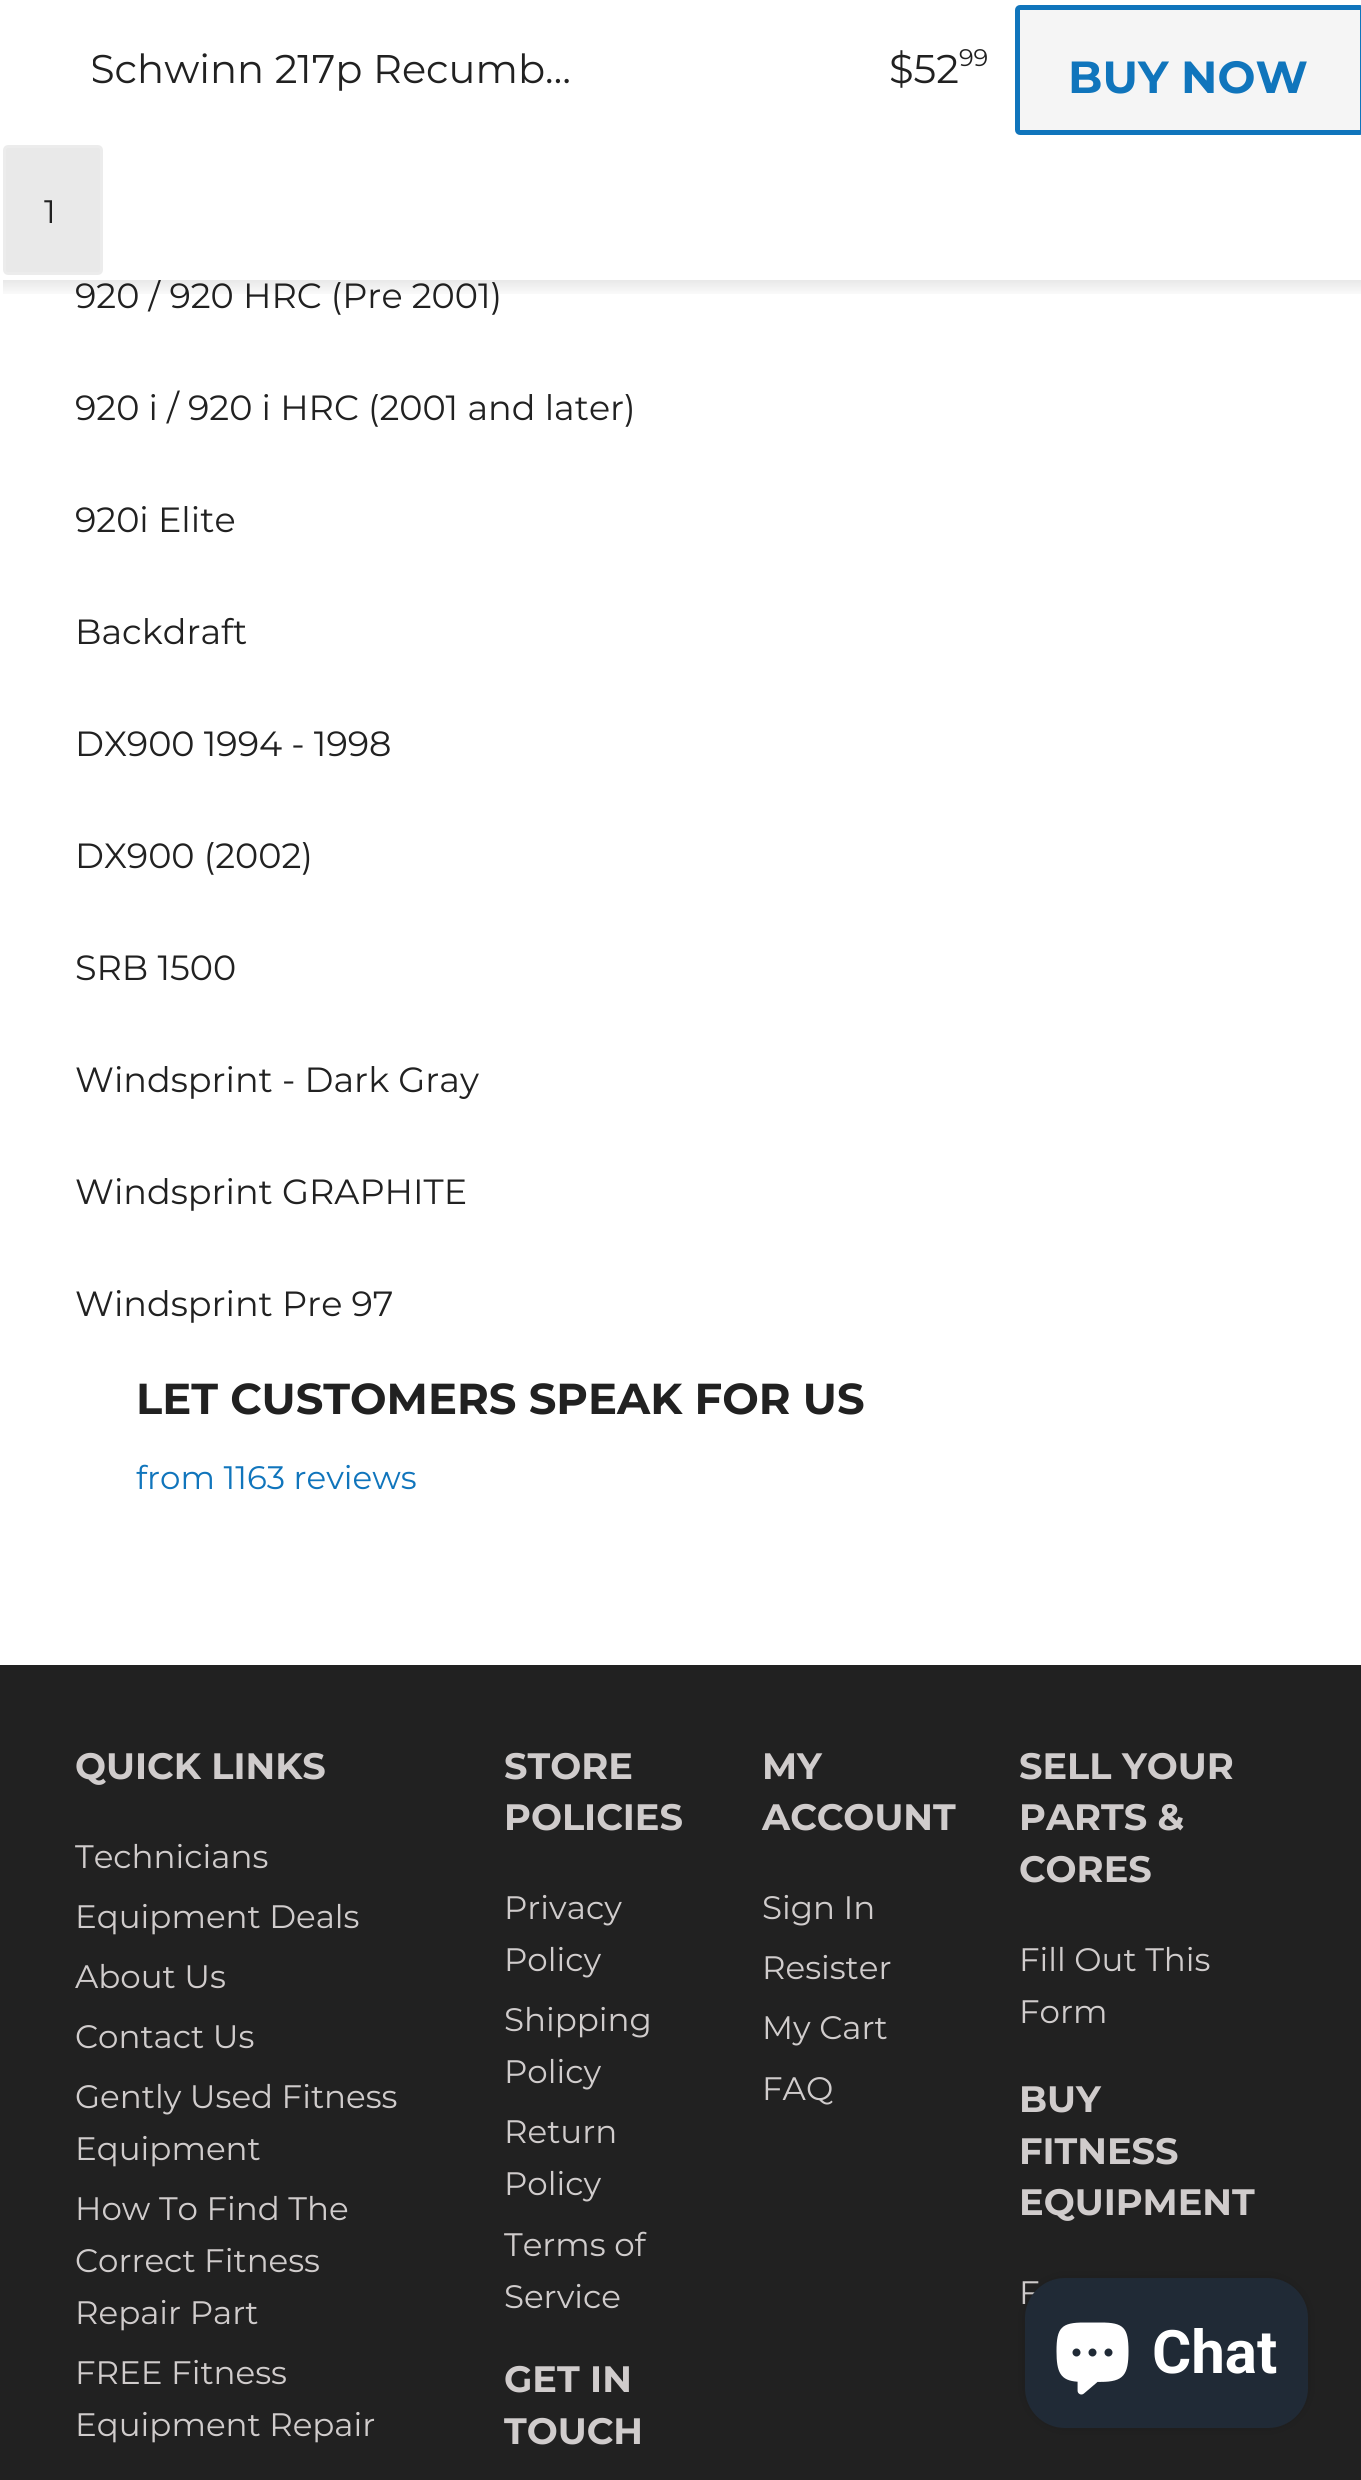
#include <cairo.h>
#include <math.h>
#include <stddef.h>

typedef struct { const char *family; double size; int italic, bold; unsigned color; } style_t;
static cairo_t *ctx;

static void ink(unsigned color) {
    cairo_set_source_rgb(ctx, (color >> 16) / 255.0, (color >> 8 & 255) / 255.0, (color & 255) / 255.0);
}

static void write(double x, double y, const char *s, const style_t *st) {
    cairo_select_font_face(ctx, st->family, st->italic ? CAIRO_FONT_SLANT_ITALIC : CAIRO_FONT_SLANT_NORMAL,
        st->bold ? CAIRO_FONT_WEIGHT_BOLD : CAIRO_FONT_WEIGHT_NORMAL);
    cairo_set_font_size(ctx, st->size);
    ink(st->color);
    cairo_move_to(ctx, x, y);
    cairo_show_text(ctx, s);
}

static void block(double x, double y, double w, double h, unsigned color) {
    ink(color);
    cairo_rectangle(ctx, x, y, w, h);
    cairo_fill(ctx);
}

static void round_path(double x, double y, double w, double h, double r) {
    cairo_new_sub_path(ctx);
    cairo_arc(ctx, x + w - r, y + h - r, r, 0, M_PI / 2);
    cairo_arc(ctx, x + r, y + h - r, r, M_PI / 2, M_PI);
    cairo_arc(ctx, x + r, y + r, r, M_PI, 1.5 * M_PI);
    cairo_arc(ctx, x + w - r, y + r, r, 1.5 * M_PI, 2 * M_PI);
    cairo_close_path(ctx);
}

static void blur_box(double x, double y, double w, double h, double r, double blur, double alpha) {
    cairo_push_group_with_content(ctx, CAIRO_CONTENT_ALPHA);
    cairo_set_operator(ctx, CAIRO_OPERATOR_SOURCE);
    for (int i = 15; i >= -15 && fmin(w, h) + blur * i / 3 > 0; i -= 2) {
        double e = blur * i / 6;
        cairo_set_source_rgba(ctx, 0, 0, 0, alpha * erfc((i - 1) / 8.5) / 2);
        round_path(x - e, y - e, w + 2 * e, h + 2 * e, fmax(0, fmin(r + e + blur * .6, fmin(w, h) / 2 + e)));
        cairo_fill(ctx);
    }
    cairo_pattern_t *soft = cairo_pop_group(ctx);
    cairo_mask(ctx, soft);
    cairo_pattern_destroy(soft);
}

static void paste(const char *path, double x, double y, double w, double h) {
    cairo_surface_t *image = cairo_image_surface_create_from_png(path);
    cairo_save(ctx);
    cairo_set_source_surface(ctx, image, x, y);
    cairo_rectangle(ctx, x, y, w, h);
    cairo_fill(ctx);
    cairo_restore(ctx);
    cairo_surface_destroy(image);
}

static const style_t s1 = {"Montserrat", 35, 0, 0, 0x212121};
static const style_t s2 = {"Montserrat", 40, 0, 0, 0x212121};
static const style_t s3 = {"Montserrat", 24, 0, 0, 0x212121};
static const style_t s4 = {"Montserrat", 45, 0, 1, 0x1075bc};
static const style_t s5 = {"Montserrat", 32.5, 0, 0, 0x212121};
static const style_t s6 = {"Montserrat", 43.3, 0, 1, 0x212121};
static const style_t s7 = {"Montserrat", 32.5, 0, 0, 0x1075bc};
static const style_t s8 = {"Montserrat", 36.75, 0, 1, 0xd0cccc};
static const style_t s9 = {"Montserrat", 32.5, 0, 0, 0xd0cccc};
static const style_t s10 = {"Roboto", 60, 0, 1, 0xffffff};

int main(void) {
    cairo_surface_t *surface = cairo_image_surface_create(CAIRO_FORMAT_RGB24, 1361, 2480);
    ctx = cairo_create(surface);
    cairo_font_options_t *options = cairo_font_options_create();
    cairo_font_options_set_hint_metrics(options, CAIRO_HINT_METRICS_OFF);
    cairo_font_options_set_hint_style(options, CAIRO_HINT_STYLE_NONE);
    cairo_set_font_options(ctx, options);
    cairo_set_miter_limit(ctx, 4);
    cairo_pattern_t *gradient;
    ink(0xffffff);
    cairo_paint(ctx);
    write(75, 308, "920 / 920 HRC (Pre 2001)", &s1);
    block(158, 278, 4, 2, 0xffffff);
    cairo_save(ctx);
    cairo_rectangle(ctx, 93, 38, 487, 65);
    cairo_clip(ctx);
    write(90, 83, "Schwinn 217p Recumb…", &s2);
    cairo_restore(ctx);
    write(889, 83, "$52", &s2);
    write(959, 66, "99", &s3);
    ink(0xf5f5f5);
    round_path(1017.5, 7.5, 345, 125, 2.5);
    cairo_fill_preserve(ctx);
    ink(0x1075bc);
    cairo_set_line_width(ctx, 5);
    cairo_stroke(ctx);
    write(1068, 93, "BUY NOW", &s4);
    ink(0xe9e9e9);
    round_path(4.5, 146.5, 97, 127, 3.5);
    cairo_fill_preserve(ctx);
    ink(0xececec);
    cairo_set_line_width(ctx, 3);
    cairo_stroke(ctx);
    write(44, 223, "1", &s5);
    gradient = cairo_pattern_create_linear(683, 280, 683, 298);
    cairo_pattern_add_color_stop_rgba(gradient, 0, 0, 0, 0, 0.09);
    cairo_pattern_add_color_stop_rgba(gradient, 1, 0, 0, 0, 0);
    cairo_set_source(ctx, gradient);
    cairo_pattern_destroy(gradient);
    cairo_rectangle(ctx, 3, 280, 1358, 14);
    cairo_fill(ctx);
    write(75, 420, "920 i / 920 i HRC (2001 and later)", &s1);
    write(75, 532, "920i Elite", &s1);
    write(75, 644, "Backdraft", &s1);
    write(75, 756, "DX900 1994 - 1998", &s1);
    write(75, 868, "DX900 (2002)", &s1);
    write(75, 980, "SRB 1500", &s1);
    write(75, 1092, "Windsprint - Dark Gray", &s1);
    write(75, 1204, "Windsprint GRAPHITE", &s1);
    write(75, 1316, "Windsprint Pre 97", &s1);
    write(136, 1414, "LET CUSTOMERS SPEAK FOR US", &s6);
    write(136, 1489, "from 1163 reviews", &s7);
    block(0, 1665, 1361, 815, 0x212121);
    write(75, 1779, "QUICK LINKS", &s8);
    write(75, 1868, "Technicians", &s9);
    write(75, 1928, "Equipment Deals", &s9);
    write(75, 1988, "About Us", &s9);
    write(75, 2048, "Contact Us", &s9);
    write(75, 2108, "Gently Used Fitness", &s9);
    write(75, 2160, "Equipment", &s9);
    write(75, 2220, "How To Find The", &s9);
    write(75, 2272, "Correct Fitness", &s9);
    write(75, 2324, "Repair Part", &s9);
    write(75, 2384, "FREE Fitness", &s9);
    write(75, 2436, "Equipment Repair", &s9);
    write(504, 1779, "STORE", &s8);
    write(504, 1830, "POLICIES", &s8);
    write(504, 1919, "Privacy", &s9);
    write(504, 1971, "Policy", &s9);
    write(504, 2031, "Shipping", &s9);
    write(504, 2083, "Policy", &s9);
    write(504, 2143, "Return", &s9);
    write(504, 2195, "Policy", &s9);
    write(504, 2256, "Terms of", &s9);
    write(504, 2308, "Service", &s9);
    write(504, 2392, "GET IN", &s8);
    write(504, 2444, "TOUCH", &s8);
    write(762, 1779, "MY", &s8);
    write(762, 1830, "ACCOUNT", &s8);
    write(762, 1919, "Sign In", &s9);
    write(762, 1979, "Resister", &s9);
    write(762, 2039, "My Cart", &s9);
    write(762, 2100, "FAQ", &s9);
    write(1019, 1779, "SELL YOUR", &s8);
    write(1019, 1830, "PARTS &", &s8);
    write(1019, 1882, "CORES", &s8);
    write(1019, 1971, "Fill Out This", &s9);
    write(1019, 2023, "Form", &s9);
    write(1019, 2112, "BUY", &s8);
    write(1019, 2164, "FITNESS", &s8);
    write(1019, 2215, "EQUIPMENT", &s8);
    write(1019, 2304, "F", &s9);
    ink(0x000000);
    blur_box(1025, 2278, 283, 150, 40, 6, 0.15);
    ink(0x202a36);
    round_path(1025, 2278, 283, 150, 40);
    cairo_fill(ctx);
    paste("pic1.png", 1056, 2322, 73, 73);
    write(1152, 2373, "Chat", &s10);
    cairo_surface_write_to_png(surface, "screenshot.png");
    cairo_font_options_destroy(options);
    cairo_destroy(ctx);
    cairo_surface_destroy(surface);
    return 0;
}
